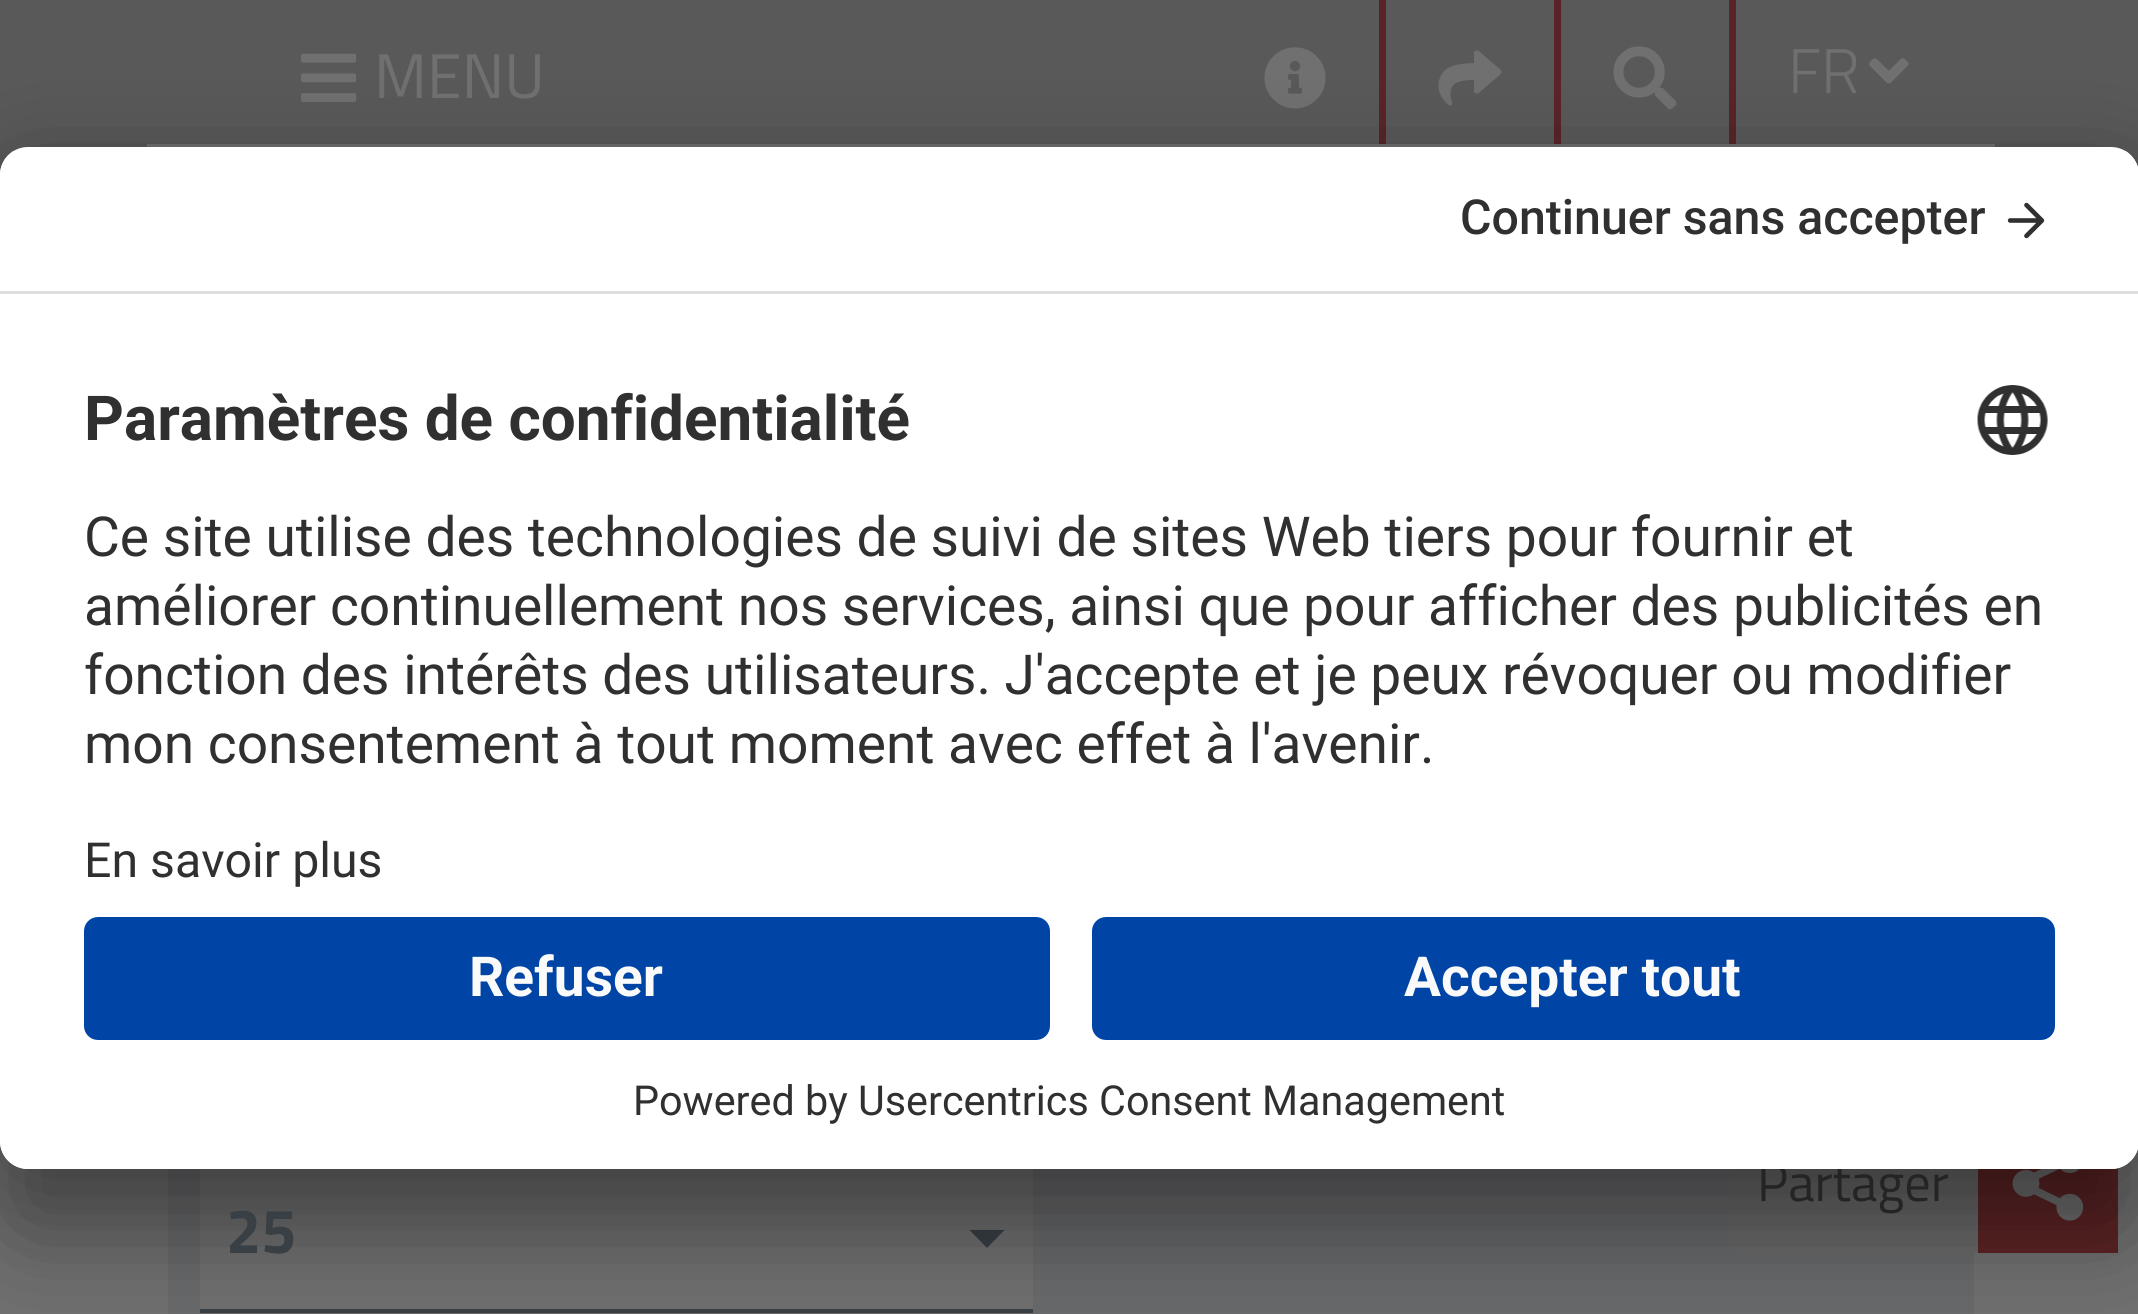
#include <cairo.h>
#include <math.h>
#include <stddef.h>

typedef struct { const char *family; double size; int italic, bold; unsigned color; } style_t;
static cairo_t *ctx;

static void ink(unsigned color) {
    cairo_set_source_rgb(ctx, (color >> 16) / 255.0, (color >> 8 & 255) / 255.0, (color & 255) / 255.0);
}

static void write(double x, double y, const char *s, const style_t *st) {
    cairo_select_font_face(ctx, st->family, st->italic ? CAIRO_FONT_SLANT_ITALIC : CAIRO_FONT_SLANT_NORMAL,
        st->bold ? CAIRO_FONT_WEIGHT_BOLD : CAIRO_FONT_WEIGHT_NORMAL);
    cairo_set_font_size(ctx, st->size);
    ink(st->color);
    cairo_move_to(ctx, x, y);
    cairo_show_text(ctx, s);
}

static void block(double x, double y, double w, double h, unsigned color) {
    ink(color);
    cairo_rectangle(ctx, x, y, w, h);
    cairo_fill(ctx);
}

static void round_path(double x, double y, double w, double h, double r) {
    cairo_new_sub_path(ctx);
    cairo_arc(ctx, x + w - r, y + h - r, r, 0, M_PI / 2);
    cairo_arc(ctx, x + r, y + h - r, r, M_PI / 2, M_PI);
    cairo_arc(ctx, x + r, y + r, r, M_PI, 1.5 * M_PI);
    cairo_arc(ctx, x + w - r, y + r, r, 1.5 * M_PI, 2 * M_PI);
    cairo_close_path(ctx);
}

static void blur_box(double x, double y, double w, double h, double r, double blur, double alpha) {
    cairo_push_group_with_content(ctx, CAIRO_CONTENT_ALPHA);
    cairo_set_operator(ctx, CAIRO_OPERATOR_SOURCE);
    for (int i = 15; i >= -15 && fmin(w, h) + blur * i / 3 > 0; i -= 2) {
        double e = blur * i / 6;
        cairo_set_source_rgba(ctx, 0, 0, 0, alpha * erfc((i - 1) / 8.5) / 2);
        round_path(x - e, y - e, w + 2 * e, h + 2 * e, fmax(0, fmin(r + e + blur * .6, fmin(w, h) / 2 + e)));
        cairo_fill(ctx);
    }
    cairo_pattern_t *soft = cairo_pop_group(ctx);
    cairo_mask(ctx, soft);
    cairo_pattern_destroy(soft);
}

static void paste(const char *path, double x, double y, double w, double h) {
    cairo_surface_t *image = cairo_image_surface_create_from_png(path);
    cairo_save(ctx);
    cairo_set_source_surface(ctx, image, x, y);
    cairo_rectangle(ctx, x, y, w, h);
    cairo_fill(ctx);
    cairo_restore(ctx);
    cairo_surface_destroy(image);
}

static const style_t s1 = {"Titillium Web", 63, 0, 0, 0x707070};
static const style_t s2 = {"Titillium Web Light", 63, 0, 0, 0x707070};
static const style_t s3 = {"Titillium Web", 52.5, 0, 0, 0x242424};
static const style_t s4 = {"Roboto Medium", 48.25, 0, 0, 0x303030};
static const style_t s5 = {"Roboto", 62, 0, 1, 0x303030};
static const style_t s6 = {"Roboto", 55.1, 0, 0, 0x303030};
static const style_t s7 = {"Roboto", 48.25, 0, 0, 0x303030};
static const style_t s8 = {"Roboto", 55.1, 0, 1, 0xfafafa};
static const style_t s9 = {"Roboto", 41.3, 0, 0, 0x303030};
static const style_t s10 = {"Titillium Web", 63, 0, 1, 0x383f45};

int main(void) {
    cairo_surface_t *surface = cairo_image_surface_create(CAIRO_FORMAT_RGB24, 2138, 1314);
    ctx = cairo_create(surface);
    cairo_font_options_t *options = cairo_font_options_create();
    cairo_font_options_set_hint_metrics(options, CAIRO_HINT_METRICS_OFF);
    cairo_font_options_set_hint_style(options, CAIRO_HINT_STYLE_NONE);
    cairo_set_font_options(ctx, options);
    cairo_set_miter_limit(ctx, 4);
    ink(0x707070);
    cairo_paint(ctx);
    block(0, 0, 2138, 175, 0x595959);
    paste("pic1.png", 301, 53, 56, 49);
    write(374, 98, "MENU", &s1);
    block(147, 144, 1848, 3, 0x707070);
    block(1379, 0, 7, 144, 0x592429);
    paste("pic2.png", 1264, 47, 62, 62);
    block(1554, 0, 7, 144, 0x592429);
    paste("pic3.png", 1438, 50, 64, 56);
    block(1729, 0, 7, 144, 0x592429);
    paste("pic4.png", 1613, 46, 64, 64);
    write(1788, 93, "FR", &s2);
    paste("pic5.png", 1869, 58, 40, 26);
    block(168, 1169, 1806, 145, 0x696a6c);
    ink(0x6b6b6b);
    cairo_new_path(ctx);
    cairo_move_to(ctx, 1743, 1113);
    cairo_line_to(ctx, 2118, 1113);
    cairo_line_to(ctx, 2118, 1253);
    cairo_line_to(ctx, 1743, 1253);
    cairo_curve_to(ctx, 1735.5, 1253, 1729, 1246.5, 1729, 1239);
    cairo_line_to(ctx, 1729, 1127);
    cairo_curve_to(ctx, 1729, 1119.5, 1735.5, 1113, 1743, 1113);
    cairo_close_path(ctx);
    cairo_fill(ctx);
    block(1978, 1168, 140, 85, 0x5d2425);
    paste("pic8.png", 2012, 1169, 72, 52);
    block(200, 1169, 833, 140, 0x707070);
    block(200, 1309, 833, 4, 0x383f45);
    cairo_new_path(ctx);
    cairo_move_to(ctx, 969.5, 1230);
    cairo_line_to(ctx, 1004.5, 1230);
    cairo_line_to(ctx, 987, 1248);
    cairo_close_path(ctx);
    cairo_fill(ctx);
    ink(0x000000);
    blur_box(0, 217, 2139, 1022, 28, 49, 0.3);
    blur_box(0, 165, 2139, 1022, 28, 45.5, 0.22);
    write(1757, 1201, "Partager", &s3);
    ink(0xffffff);
    round_path(0, 147, 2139, 1022, 28);
    cairo_fill(ctx);
    cairo_save(ctx);
    round_path(0, 147, 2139, 1022, 28);
    cairo_clip(ctx);
    cairo_new_path(ctx);
    cairo_move_to(ctx, 28, 147);
    cairo_line_to(ctx, 2111, 147);
    cairo_curve_to(ctx, 2126.5, 147, 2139, 159.5, 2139, 175);
    cairo_line_to(ctx, 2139, 889);
    cairo_line_to(ctx, 0, 889);
    cairo_line_to(ctx, 0, 175);
    cairo_curve_to(ctx, 0, 159.5, 12.5, 147, 28, 147);
    cairo_close_path(ctx);
    cairo_clip(ctx);
    block(0, 151, 2138, 140, 0xffffff);
    cairo_restore(ctx);
    block(0, 291, 2138, 3, 0xdedede);
    write(1460, 234, "Continuer sans accepter", &s4);
    paste("pic6.png", 2007, 202, 38, 37);
    write(84, 440, "Paramètres de confidentialité", &s5);
    paste("pic7.png", 1977, 385, 71, 70);
    write(84, 556, "Ce site utilise des technologies de suivi de sites Web tiers pour fournir et", &s6);
    write(84, 625, "améliorer continuellement nos services, ainsi que pour afficher des publicités en", &s6);
    write(84, 694, "fonction des intérêts des utilisateurs. J'accepte et je peux révoquer ou modifier", &s6);
    write(84, 763, "mon consentement à tout moment avec effet à l'avenir.", &s6);
    write(84, 877, "En savoir plus", &s7);
    ink(0xffffff);
    cairo_new_path(ctx);
    cairo_move_to(ctx, 0, 889);
    cairo_line_to(ctx, 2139, 889);
    cairo_line_to(ctx, 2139, 1141);
    cairo_curve_to(ctx, 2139, 1156.5, 2126.5, 1169, 2111, 1169);
    cairo_line_to(ctx, 28, 1169);
    cairo_curve_to(ctx, 12.5, 1169, 0, 1156.5, 0, 1141);
    cairo_close_path(ctx);
    cairo_fill(ctx);
    ink(0x0045a5);
    round_path(84, 917, 966, 123, 14);
    cairo_fill(ctx);
    write(469, 996, "Refuser", &s8);
    ink(0x0045a5);
    round_path(1092, 917, 963, 123, 14);
    cairo_fill(ctx);
    write(1404, 996, "Accepter tout", &s8);
    write(633, 1115, "Powered by Usercentrics Consent Management", &s9);
    write(226, 1253, "25", &s10);
    cairo_surface_write_to_png(surface, "screenshot.png");
    cairo_font_options_destroy(options);
    cairo_destroy(ctx);
    cairo_surface_destroy(surface);
    return 0;
}
